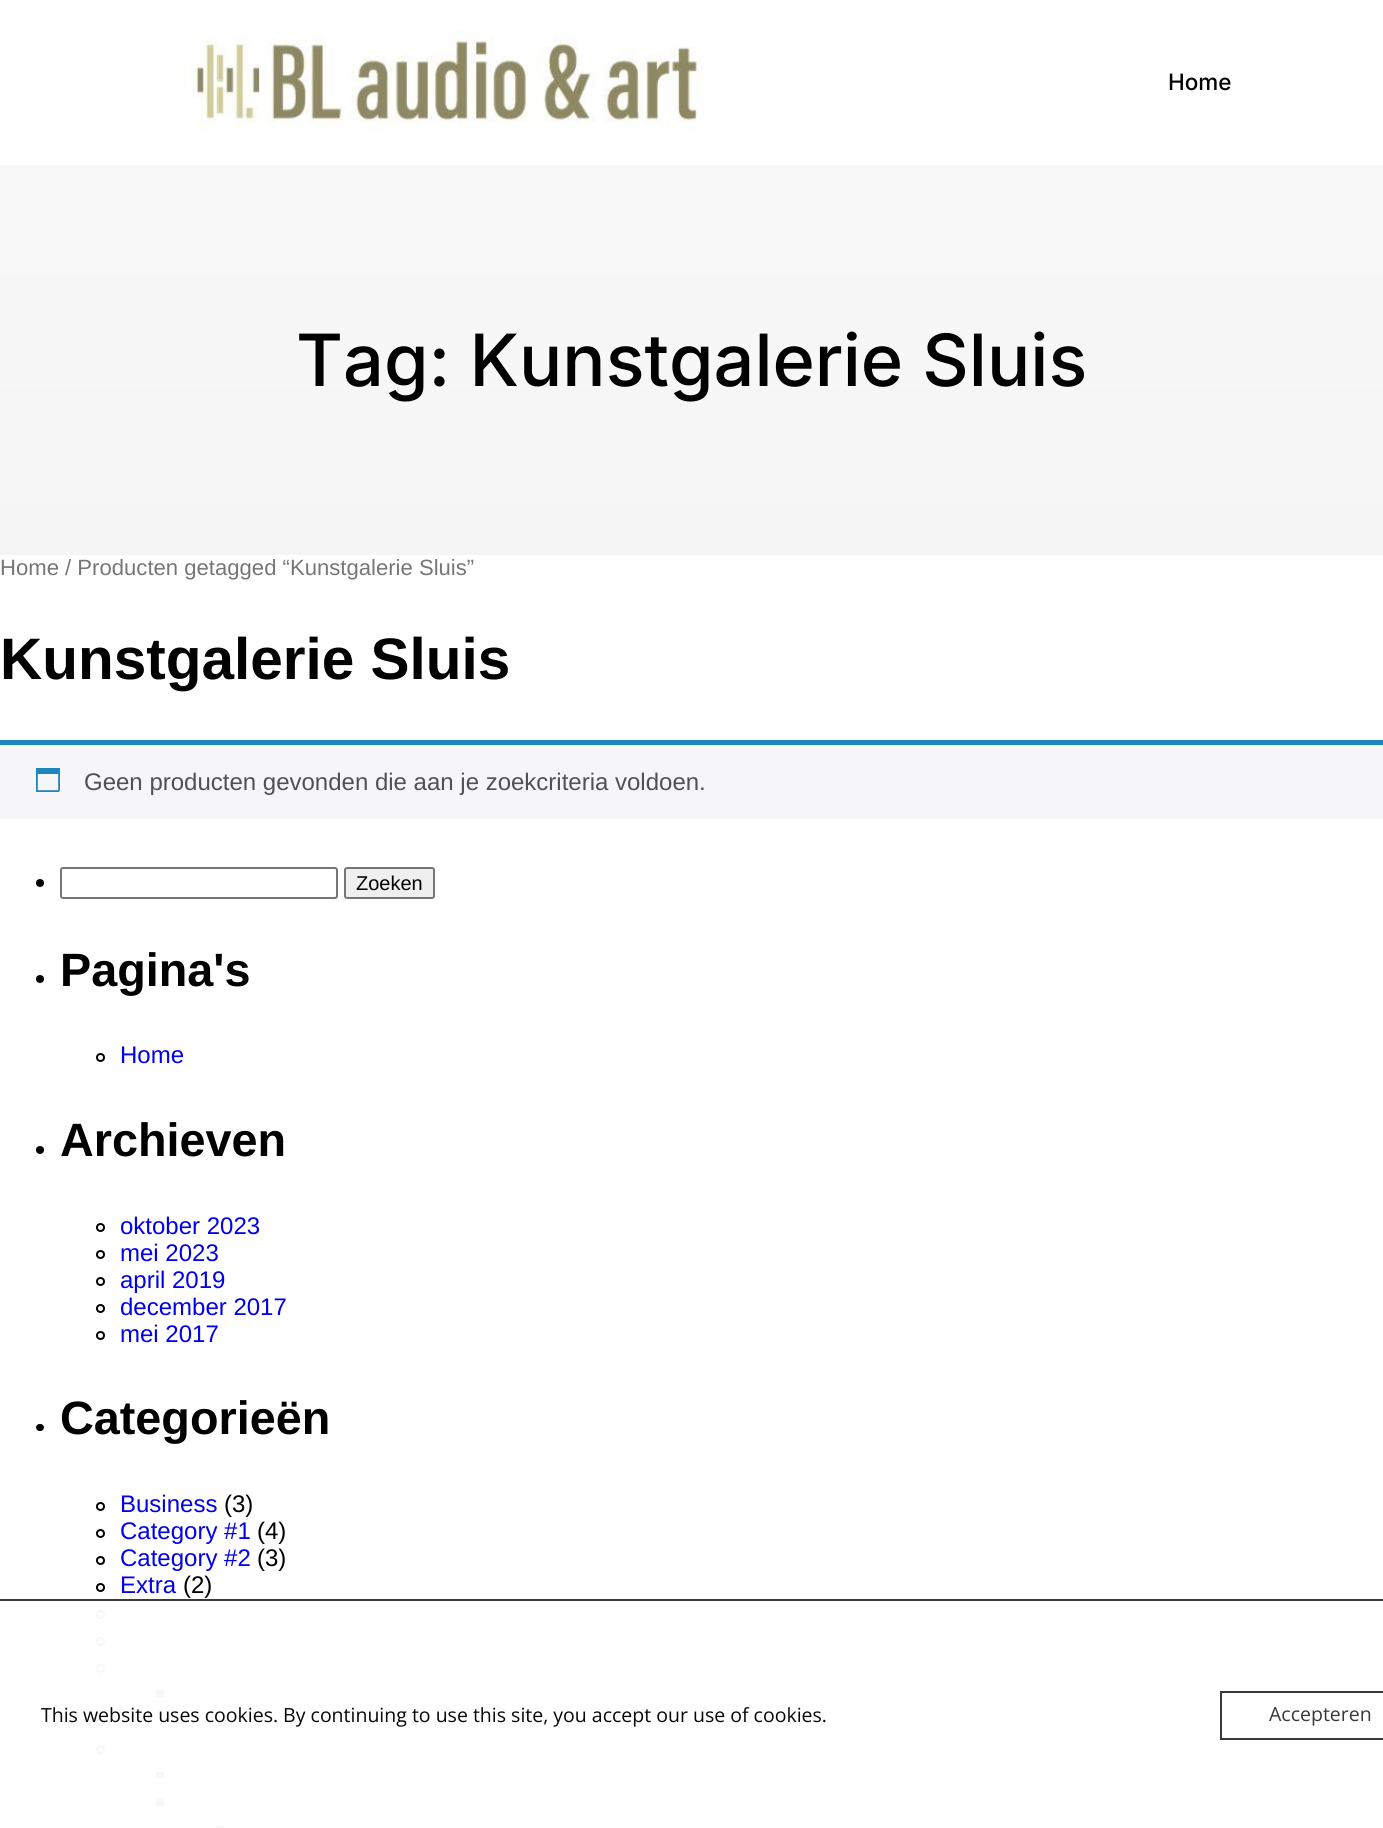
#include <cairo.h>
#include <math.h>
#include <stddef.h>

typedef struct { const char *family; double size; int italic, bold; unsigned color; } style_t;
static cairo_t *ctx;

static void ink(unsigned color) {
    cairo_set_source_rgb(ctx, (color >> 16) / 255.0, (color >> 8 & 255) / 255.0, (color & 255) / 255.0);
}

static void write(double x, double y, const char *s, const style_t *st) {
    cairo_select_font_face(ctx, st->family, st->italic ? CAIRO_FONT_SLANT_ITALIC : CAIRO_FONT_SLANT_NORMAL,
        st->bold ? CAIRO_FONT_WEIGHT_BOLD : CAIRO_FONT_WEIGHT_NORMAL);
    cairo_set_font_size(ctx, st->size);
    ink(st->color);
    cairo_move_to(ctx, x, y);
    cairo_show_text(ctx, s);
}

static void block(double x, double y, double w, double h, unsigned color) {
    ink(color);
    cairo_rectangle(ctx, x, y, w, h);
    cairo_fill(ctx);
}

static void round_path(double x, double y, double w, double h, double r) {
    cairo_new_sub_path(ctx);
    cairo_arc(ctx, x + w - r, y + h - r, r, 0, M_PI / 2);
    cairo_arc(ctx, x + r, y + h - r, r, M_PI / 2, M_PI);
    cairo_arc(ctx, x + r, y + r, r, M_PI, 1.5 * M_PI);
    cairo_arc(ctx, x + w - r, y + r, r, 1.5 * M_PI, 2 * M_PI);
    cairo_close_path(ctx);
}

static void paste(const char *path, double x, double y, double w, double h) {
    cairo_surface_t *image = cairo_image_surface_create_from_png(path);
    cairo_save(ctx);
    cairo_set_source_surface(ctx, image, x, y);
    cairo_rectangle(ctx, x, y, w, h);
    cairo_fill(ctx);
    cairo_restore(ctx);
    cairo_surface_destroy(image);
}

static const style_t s1 = {"Inter Medium", 22.5, 0, 0, 0x000000};
static const style_t s2 = {"Inter Medium", 72, 0, 0, 0x000000};
static const style_t s3 = {"Liberation Sans", 22.1, 0, 0, 0x767676};
static const style_t s4 = {"Liberation Sans", 58.5, 0, 1, 0x000000};
static const style_t s5 = {"Liberation Sans", 24, 0, 0, 0x515151};
static const style_t s6 = {"Liberation Sans", 20, 0, 0, 0x000000};
static const style_t s7 = {"Liberation Sans", 46.75, 0, 1, 0x000000};
static const style_t s8 = {"Liberation Sans", 24, 0, 0, 0x0000ee};
static const style_t s9 = {"Liberation Sans", 24, 0, 0, 0x000000};
static const style_t s10 = {"Open Sans", 19.5, 0, 0, 0x080808};
static const style_t s11 = {"Open Sans", 19.5, 0, 0, 0x393939};

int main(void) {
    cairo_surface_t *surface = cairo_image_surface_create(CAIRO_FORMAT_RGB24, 1383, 1828);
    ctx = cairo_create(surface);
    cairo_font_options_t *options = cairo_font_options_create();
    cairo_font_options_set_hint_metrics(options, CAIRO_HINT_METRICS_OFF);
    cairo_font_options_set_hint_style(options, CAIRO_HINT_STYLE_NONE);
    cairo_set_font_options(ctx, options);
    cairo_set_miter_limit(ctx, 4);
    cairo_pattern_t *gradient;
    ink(0xffffff);
    cairo_paint(ctx);
    paste("pic1.png", 183, 30, 521, 101);
    write(1168, 90, "Home", &s1);
    gradient = cairo_pattern_create_linear(692, 555, 692, 0);
    cairo_pattern_add_color_stop_rgba(gradient, 0, 0.961, 0.961, 0.961, 1);
    cairo_pattern_add_color_stop_rgba(gradient, 1, 0.98, 0.98, 0.98, 1);
    cairo_set_source(ctx, gradient);
    cairo_pattern_destroy(gradient);
    cairo_rectangle(ctx, 0, 165, 1383, 390);
    cairo_fill(ctx);
    write(296, 386, "Tag: Kunstgalerie Sluis", &s2);
    write(0, 575, "Home / Producten getagged “Kunstgalerie Sluis”", &s3);
    write(0, 679, "Kunstgalerie Sluis", &s4);
    block(0, 745, 1383, 74, 0xf6f5f8);
    block(0, 740, 1383, 5, 0x1e85be);
    paste("pic2.png", 36, 768, 24, 24);
    write(84, 790, "Geen producten gevonden die aan je zoekcriteria voldoen.", &s5);
    ink(0x000000);
    cairo_new_path(ctx);
    cairo_arc(ctx, 40, 883, 4, 0, 2 * M_PI);
    cairo_fill(ctx);
    round_path(61, 868, 276, 30, 2);
    ink(0x767676);
    cairo_stroke(ctx);
    ink(0xefefef);
    round_path(345, 868, 89, 30, 2);
    cairo_fill_preserve(ctx);
    ink(0x767676);
    cairo_stroke(ctx);
    write(356, 890, "Zoeken", &s6);
    cairo_new_path(ctx);
    cairo_arc(ctx, 40, 979, 4, 0, 2 * M_PI);
    cairo_fill(ctx);
    write(60, 986, "Pagina's", &s7);
    cairo_new_path(ctx);
    cairo_arc(ctx, 100.5, 1057.5, 3.5, 0, 2 * M_PI);
    cairo_stroke(ctx);
    write(120, 1063, "Home", &s8);
    ink(0x000000);
    cairo_new_path(ctx);
    cairo_arc(ctx, 40, 1150, 4, 0, 2 * M_PI);
    cairo_fill(ctx);
    write(60, 1156, "Archieven", &s7);
    cairo_new_path(ctx);
    cairo_arc(ctx, 100.5, 1227.5, 3.5, 0, 2 * M_PI);
    cairo_stroke(ctx);
    write(120, 1234, "oktober 2023", &s8);
    cairo_new_path(ctx);
    cairo_arc(ctx, 100.5, 1254.5, 3.5, 0, 2 * M_PI);
    ink(0x000000);
    cairo_stroke(ctx);
    write(120, 1261, "mei 2023", &s8);
    cairo_new_path(ctx);
    cairo_arc(ctx, 100.5, 1281.5, 3.5, 0, 2 * M_PI);
    ink(0x000000);
    cairo_stroke(ctx);
    write(120, 1288, "april 2019", &s8);
    cairo_new_path(ctx);
    cairo_arc(ctx, 100.5, 1308.5, 3.5, 0, 2 * M_PI);
    ink(0x000000);
    cairo_stroke(ctx);
    write(120, 1315, "december 2017", &s8);
    cairo_new_path(ctx);
    cairo_arc(ctx, 100.5, 1335.5, 3.5, 0, 2 * M_PI);
    ink(0x000000);
    cairo_stroke(ctx);
    write(120, 1342, "mei 2017", &s8);
    ink(0x000000);
    round_path(36, 1424, 8, 7, 3.5);
    cairo_fill(ctx);
    write(60, 1434, "Categorieën", &s7);
    cairo_new_path(ctx);
    cairo_arc(ctx, 100.5, 1506.5, 3.5, 0, 2 * M_PI);
    cairo_stroke(ctx);
    write(120, 1512, "Business", &s8);
    write(224, 1512, "(3)", &s9);
    cairo_new_path(ctx);
    cairo_arc(ctx, 100.5, 1533.5, 3.5, 0, 2 * M_PI);
    cairo_stroke(ctx);
    write(120, 1539, "Category #1", &s8);
    write(257, 1539, "(4)", &s9);
    cairo_new_path(ctx);
    cairo_arc(ctx, 100.5, 1560.5, 3.5, 0, 2 * M_PI);
    cairo_stroke(ctx);
    write(120, 1566, "Category #2", &s8);
    write(257, 1566, "(3)", &s9);
    cairo_new_path(ctx);
    cairo_arc(ctx, 100.5, 1587.5, 3.5, 0, 2 * M_PI);
    cairo_stroke(ctx);
    write(120, 1593, "Extra", &s8);
    write(183, 1593, "(2)", &s9);
    cairo_new_path(ctx);
    cairo_arc(ctx, 100.5, 1614.5, 3.5, 0, 2 * M_PI);
    ink(0xf7f7f7);
    cairo_stroke(ctx);
    cairo_arc(ctx, 100.5, 1641.5, 3.5, 0, 2 * M_PI);
    cairo_stroke(ctx);
    cairo_arc(ctx, 100.5, 1668.5, 3.5, 0, 2 * M_PI);
    cairo_stroke(ctx);
    block(156, 1691, 8, 7, 0xf7f7f7);
    cairo_arc(ctx, 100.5, 1722.5, 3.5, 0, 2 * M_PI);
    cairo_stroke(ctx);
    cairo_arc(ctx, 100.5, 1749.5, 3.5, 0, 2 * M_PI);
    cairo_stroke(ctx);
    block(156, 1772, 8, 7, 0xf7f7f7);
    block(156, 1799, 8, 7, 0xf7f7f7);
    block(216, 1826, 8, 2, 0xf7f7f7);
    block(0, 1599, 1383, 2, 0x393939);
    write(41, 1722, "This website uses cookies. By continuing to use this site, you accept our use of cookies.", &s10);
    cairo_rectangle(ctx, 1221, 1692, 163, 47);
    ink(0x393939);
    cairo_stroke(ctx);
    write(1269, 1721, "Accepteren", &s11);
    cairo_surface_write_to_png(surface, "screenshot.png");
    cairo_font_options_destroy(options);
    cairo_destroy(ctx);
    cairo_surface_destroy(surface);
    return 0;
}
